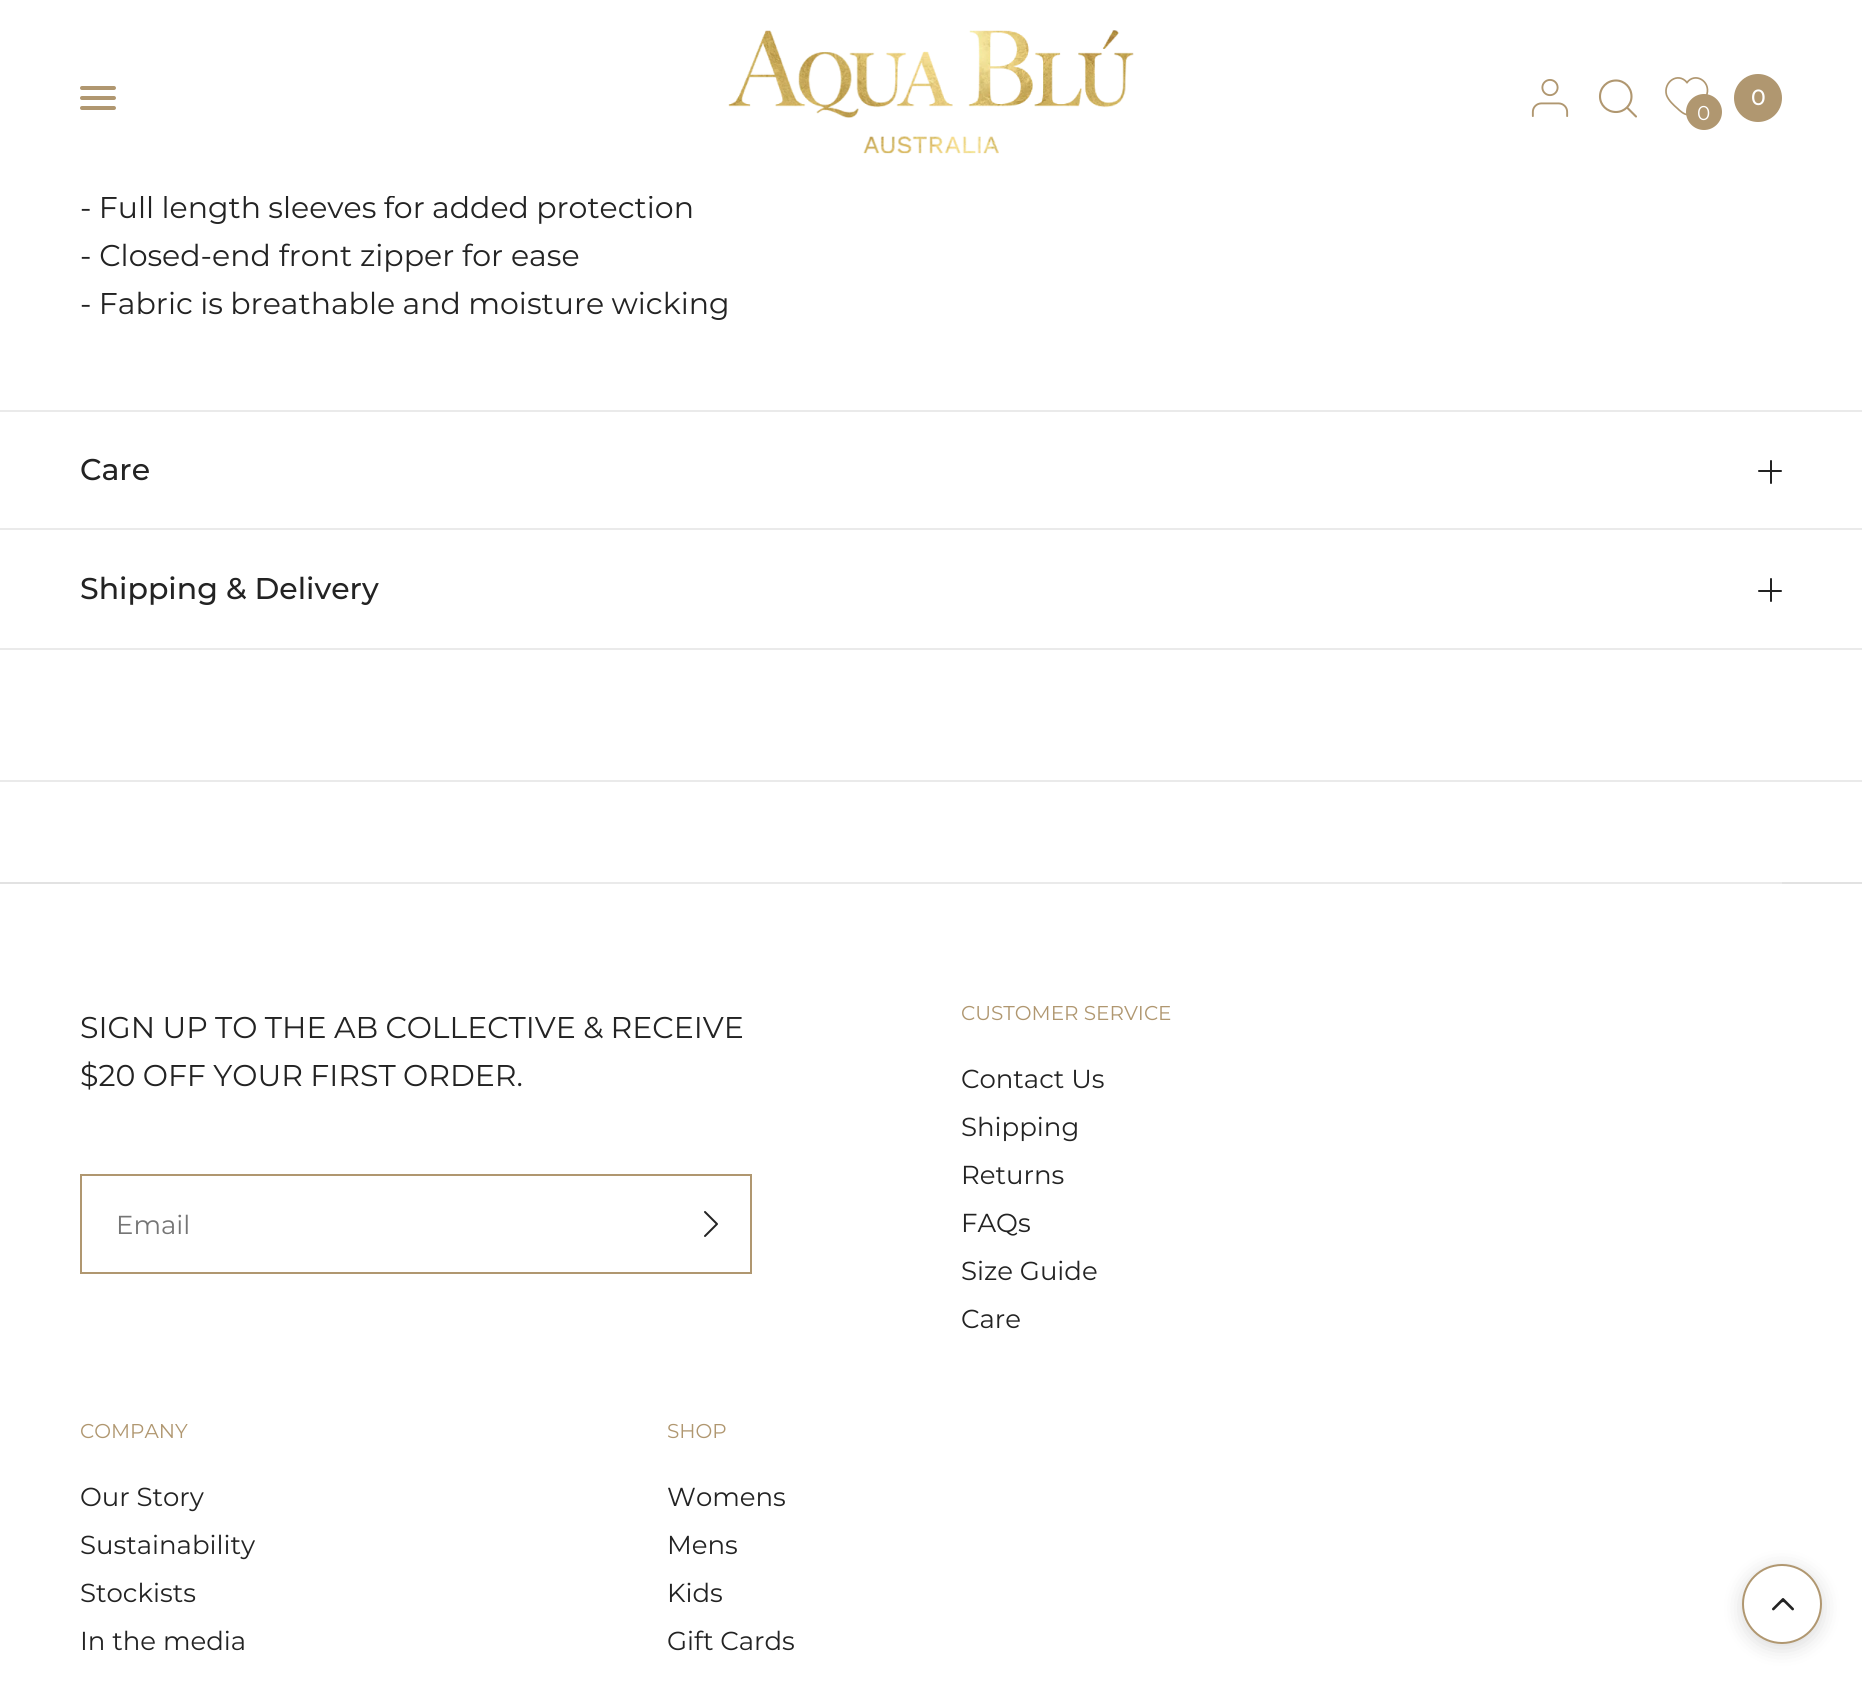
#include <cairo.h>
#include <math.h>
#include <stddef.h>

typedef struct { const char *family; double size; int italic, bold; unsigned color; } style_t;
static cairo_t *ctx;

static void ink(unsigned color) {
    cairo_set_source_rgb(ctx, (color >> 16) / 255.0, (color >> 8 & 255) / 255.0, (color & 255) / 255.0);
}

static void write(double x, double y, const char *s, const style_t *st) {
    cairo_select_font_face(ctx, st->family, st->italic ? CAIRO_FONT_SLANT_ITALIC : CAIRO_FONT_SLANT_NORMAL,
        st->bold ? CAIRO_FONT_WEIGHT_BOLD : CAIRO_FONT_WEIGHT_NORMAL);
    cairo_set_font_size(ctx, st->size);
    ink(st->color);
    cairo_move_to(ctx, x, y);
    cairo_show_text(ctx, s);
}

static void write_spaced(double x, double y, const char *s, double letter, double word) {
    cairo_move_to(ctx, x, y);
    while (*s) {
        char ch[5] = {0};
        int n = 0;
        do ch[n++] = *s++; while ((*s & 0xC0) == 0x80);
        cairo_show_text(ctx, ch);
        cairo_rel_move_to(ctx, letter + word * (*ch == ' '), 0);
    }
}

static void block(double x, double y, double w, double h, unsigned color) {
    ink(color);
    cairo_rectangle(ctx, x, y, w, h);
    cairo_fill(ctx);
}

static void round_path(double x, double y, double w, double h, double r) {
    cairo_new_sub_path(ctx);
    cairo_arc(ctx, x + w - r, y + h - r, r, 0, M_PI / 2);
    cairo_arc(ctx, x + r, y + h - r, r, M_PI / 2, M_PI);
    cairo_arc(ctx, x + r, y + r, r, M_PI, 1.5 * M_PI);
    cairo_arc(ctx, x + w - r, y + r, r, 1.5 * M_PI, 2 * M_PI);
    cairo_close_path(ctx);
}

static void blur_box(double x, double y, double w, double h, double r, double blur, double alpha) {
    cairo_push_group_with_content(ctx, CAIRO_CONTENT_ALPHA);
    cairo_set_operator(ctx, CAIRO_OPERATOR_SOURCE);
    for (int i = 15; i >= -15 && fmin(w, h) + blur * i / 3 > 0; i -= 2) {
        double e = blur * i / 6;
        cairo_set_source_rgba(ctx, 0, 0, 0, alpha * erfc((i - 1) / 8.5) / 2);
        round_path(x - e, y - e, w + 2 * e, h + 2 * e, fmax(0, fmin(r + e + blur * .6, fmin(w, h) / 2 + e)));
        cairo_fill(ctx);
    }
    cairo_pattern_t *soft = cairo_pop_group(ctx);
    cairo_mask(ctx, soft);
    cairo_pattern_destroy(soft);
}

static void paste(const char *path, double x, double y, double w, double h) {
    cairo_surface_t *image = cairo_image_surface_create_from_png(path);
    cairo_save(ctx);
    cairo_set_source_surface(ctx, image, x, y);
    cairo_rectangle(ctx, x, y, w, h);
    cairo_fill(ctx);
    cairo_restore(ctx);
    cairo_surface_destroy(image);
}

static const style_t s1 = {"Montserrat Medium", 22, 0, 0, 0xffffff};
static const style_t s2 = {"Montserrat Thin", 20, 0, 0, 0xffffff};
static const style_t s3 = {"Montserrat Thin", 30, 0, 0, 0x232323};
static const style_t s4 = {"Montserrat Medium", 30, 0, 0, 0x232323};
static const style_t s5 = {"Montserrat Thin", 26, 0, 0, 0x757575};
static const style_t s6 = {"Montserrat Thin", 20, 0, 0, 0xb09770};
static const style_t s7 = {"Montserrat Thin", 26, 0, 0, 0x232323};

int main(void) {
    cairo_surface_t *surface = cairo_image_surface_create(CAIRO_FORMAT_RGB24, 1862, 1683);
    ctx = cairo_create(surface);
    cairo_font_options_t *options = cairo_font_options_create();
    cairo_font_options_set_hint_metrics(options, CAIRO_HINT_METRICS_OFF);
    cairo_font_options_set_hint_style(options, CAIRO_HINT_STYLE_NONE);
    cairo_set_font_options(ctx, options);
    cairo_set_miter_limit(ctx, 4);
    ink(0xffffff);
    cairo_paint(ctx);
    ink(0xb09770);
    round_path(80, 86, 36, 4, 2);
    cairo_fill(ctx);
    round_path(80, 96, 36, 4, 2);
    cairo_fill(ctx);
    round_path(80, 106, 36, 4, 2);
    cairo_fill(ctx);
    paste("pic1.png", 728, 30, 406, 124);
    paste("pic2.png", 1531, 79, 38, 38);
    cairo_new_path(ctx);
    cairo_move_to(ctx, 1627, 107.5);
    cairo_line_to(ctx, 1636, 116.5);
    cairo_move_to(ctx, 1631.5, 96.5);
    cairo_curve_to(ctx, 1631.5, 105, 1624.5, 112, 1616, 112);
    cairo_curve_to(ctx, 1607, 112, 1600, 105, 1600, 96.5);
    cairo_curve_to(ctx, 1600, 87.5, 1607, 80.5, 1616, 80.5);
    cairo_curve_to(ctx, 1624.5, 80.5, 1631.5, 87.5, 1631.5, 96.5);
    cairo_close_path(ctx);
    cairo_set_line_width(ctx, 2.1);
    cairo_set_line_cap(ctx, CAIRO_LINE_CAP_ROUND);
    cairo_set_line_join(ctx, CAIRO_LINE_JOIN_ROUND);
    cairo_stroke(ctx);
    cairo_arc(ctx, 1758, 98, 24, 0, 2 * M_PI);
    cairo_fill(ctx);
    write(1751, 105, "0", &s1);
    cairo_new_path(ctx);
    cairo_move_to(ctx, 1687, 114.5);
    cairo_curve_to(ctx, 1684, 114.5, 1679.5, 110.5, 1677.5, 108.5);
    cairo_curve_to(ctx, 1673.5, 105, 1668.5, 100.5, 1666.5, 95);
    cairo_curve_to(ctx, 1663, 82, 1678, 71.5, 1687, 82.5);
    cairo_curve_to(ctx, 1695, 72, 1710.5, 81, 1707, 94);
    cairo_curve_to(ctx, 1705.5, 100, 1701, 104.5, 1696, 108.5);
    cairo_curve_to(ctx, 1695, 109.5, 1689.5, 114.5, 1687, 114.5);
    cairo_close_path(ctx);
    ink(0xb09770);
    cairo_set_line_width(ctx, 1.7);
    cairo_set_line_cap(ctx, CAIRO_LINE_CAP_BUTT);
    cairo_set_line_join(ctx, CAIRO_LINE_JOIN_MITER);
    cairo_stroke(ctx);
    cairo_arc(ctx, 1704, 112, 18, 0, 2 * M_PI);
    cairo_fill(ctx);
    write(1697, 120, "0", &s2);
    cairo_set_font_size(ctx, 30);
    ink(0x232323);
    write_spaced(80, 218, "- Full length sleeves for added protection", 0, -0.5);
    block(141, 195, 512, 1, 0xffffff);
    block(0, 780, 1862, 2, 0xeaeaea);
    block(0, 410, 1862, 2, 0xeaeaea);
    write(80, 266, "- Closed-end front zipper for ease", &s3);
    write_spaced(80, 314, "- Fabric is breathable and moisture wicking", 0, -0.5);
    block(0, 528, 1862, 2, 0xeaeaea);
    write(80, 480, "Care", &s4);
    round_path(1770, 460, 2, 24, 1);
    cairo_fill(ctx);
    round_path(1758, 470, 24, 2, 1);
    cairo_fill(ctx);
    block(0, 648, 1862, 2, 0xeaeaea);
    write(80, 599, "Shipping & Delivery", &s4);
    round_path(1770, 578, 2, 24, 1);
    cairo_fill(ctx);
    round_path(1758, 590, 24, 2, 1);
    cairo_fill(ctx);
    block(0, 882, 1862, 2, 0xe2e2e2);
    block(80, 882, 1702, 2, 0xeaeaea);
    cairo_select_font_face(ctx, "Montserrat Thin", CAIRO_FONT_SLANT_NORMAL, CAIRO_FONT_WEIGHT_NORMAL);
    ink(0x232323);
    write_spaced(80, 1038, "SIGN UP TO THE AB COLLECTIVE & RECEIVE", 0, -0.5);
    write_spaced(80, 1086, "$20 OFF YOUR FIRST ORDER.", 0, -0.5);
    cairo_rectangle(ctx, 81, 1175, 670, 98);
    ink(0xb09770);
    cairo_set_line_width(ctx, 2);
    cairo_stroke(ctx);
    write(116, 1234, "Email", &s5);
    cairo_new_path(ctx);
    cairo_move_to(ctx, 705, 1212);
    cairo_line_to(ctx, 717, 1224);
    cairo_line_to(ctx, 705, 1236);
    ink(0x232323);
    cairo_set_line_cap(ctx, CAIRO_LINE_CAP_ROUND);
    cairo_set_line_join(ctx, CAIRO_LINE_JOIN_ROUND);
    cairo_stroke(ctx);
    write(961, 1020, "CUSTOMER SERVICE", &s6);
    write(961, 1088, "Contact Us", &s7);
    write(961, 1136, "Shipping", &s7);
    write(961, 1184, "Returns", &s7);
    write(961, 1232, "FAQs", &s7);
    write(961, 1280, "Size Guide", &s7);
    write(961, 1328, "Care", &s7);
    write(80, 1438, "COMPANY", &s6);
    write(80, 1506, "Our Story", &s7);
    write(80, 1554, "Sustainability", &s7);
    write(80, 1602, "Stockists", &s7);
    write(80, 1650, "In the media", &s7);
    write(667, 1438, "SHOP", &s6);
    write(667, 1506, "Womens", &s7);
    write(667, 1554, "Mens", &s7);
    write(667, 1602, "Kids", &s7);
    write(667, 1650, "Gift Cards", &s7);
    ink(0x000000);
    blur_box(1742, 1568, 80, 80, 40, 10, 0.15);
    ink(0xffffff);
    cairo_arc(ctx, 1782, 1604, 39, 0, 2 * M_PI);
    cairo_fill_preserve(ctx);
    ink(0xb09770);
    cairo_set_line_cap(ctx, CAIRO_LINE_CAP_BUTT);
    cairo_set_line_join(ctx, CAIRO_LINE_JOIN_MITER);
    cairo_stroke(ctx);
    paste("pic3.png", 1772, 1598, 22, 13);
    cairo_surface_write_to_png(surface, "screenshot.png");
    cairo_font_options_destroy(options);
    cairo_destroy(ctx);
    cairo_surface_destroy(surface);
    return 0;
}
